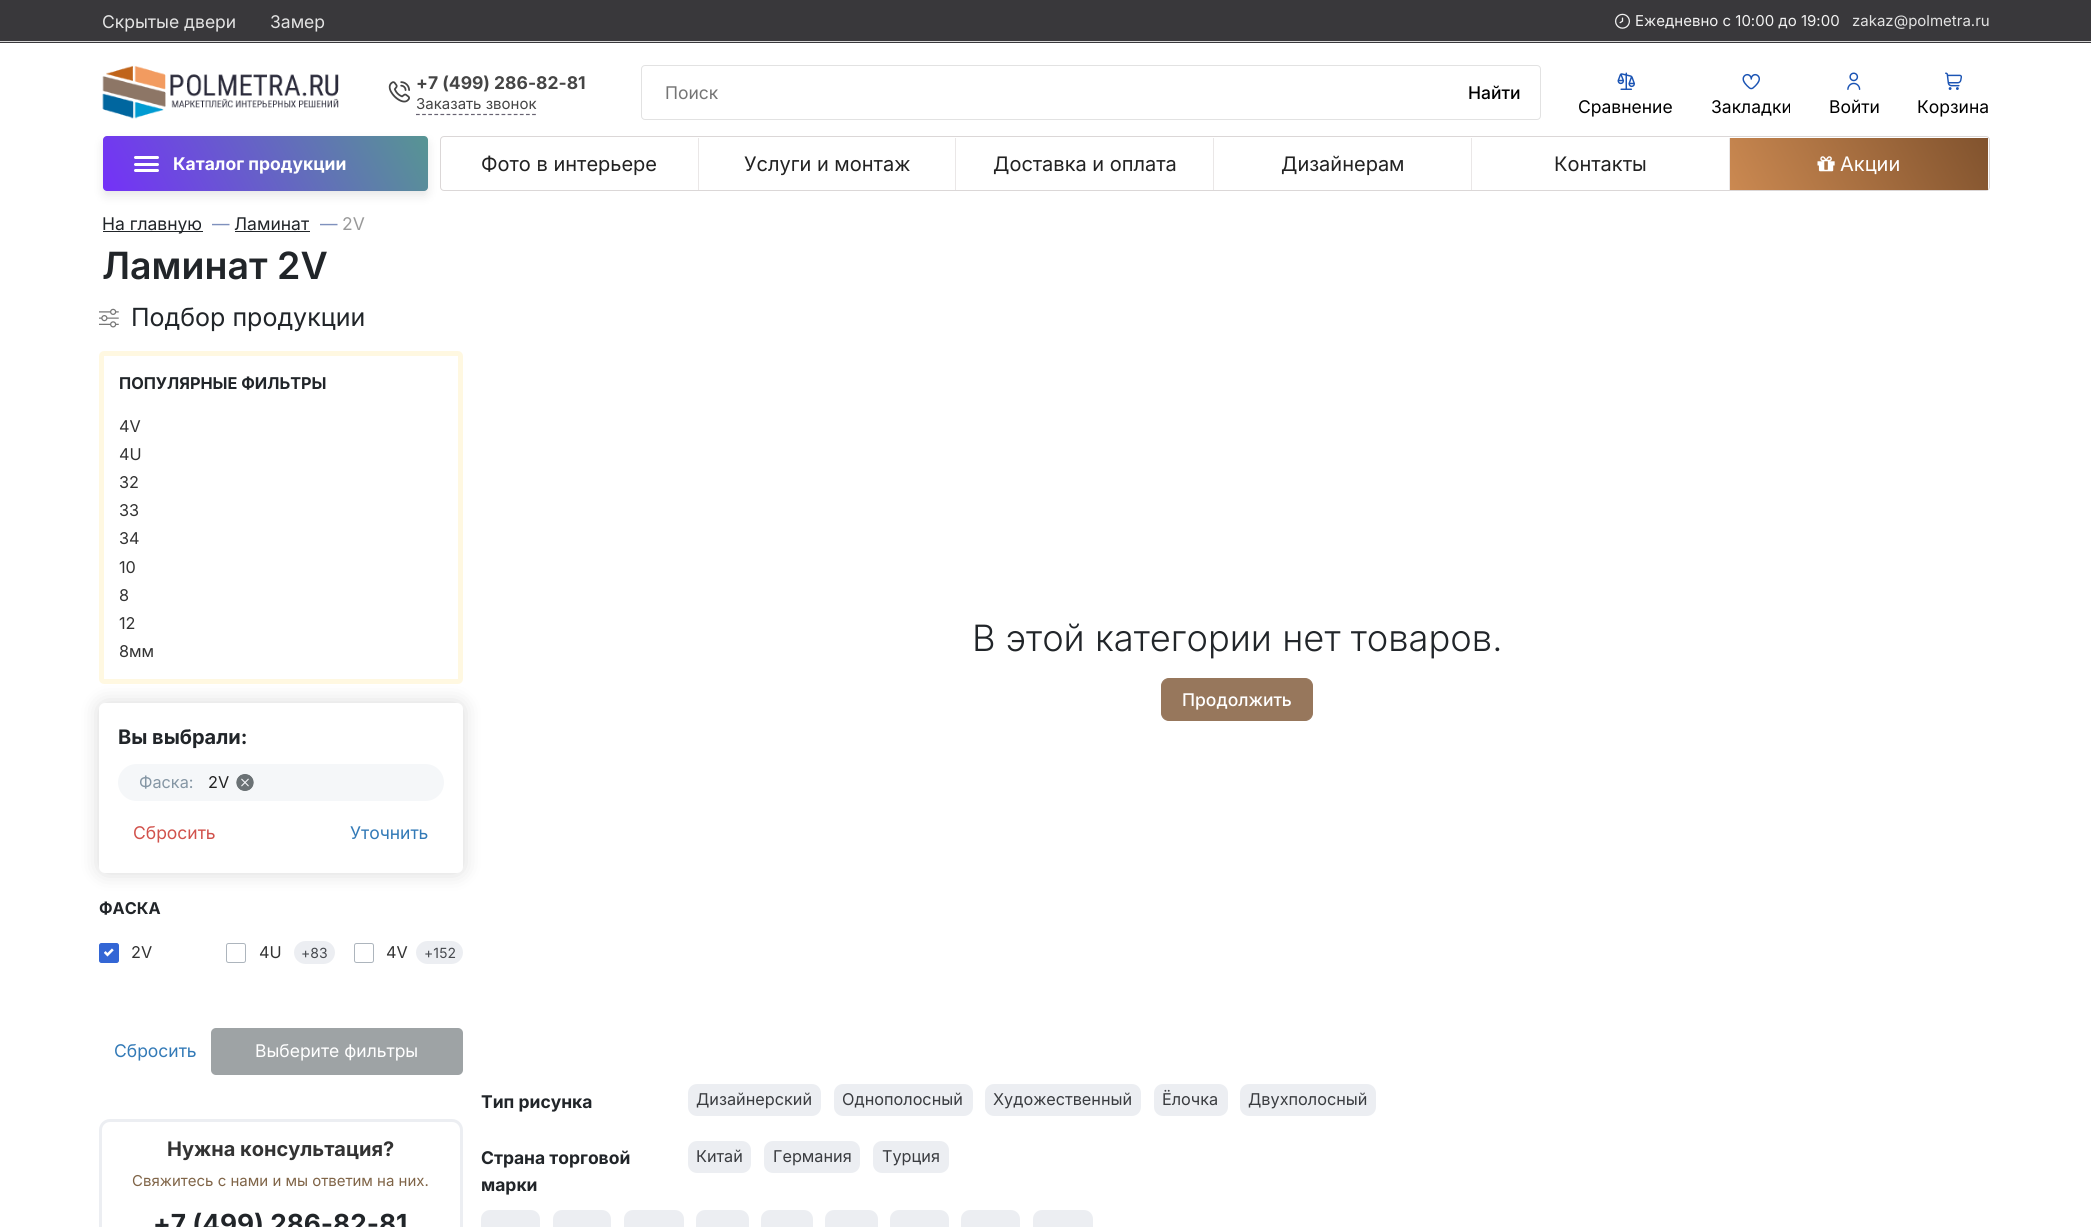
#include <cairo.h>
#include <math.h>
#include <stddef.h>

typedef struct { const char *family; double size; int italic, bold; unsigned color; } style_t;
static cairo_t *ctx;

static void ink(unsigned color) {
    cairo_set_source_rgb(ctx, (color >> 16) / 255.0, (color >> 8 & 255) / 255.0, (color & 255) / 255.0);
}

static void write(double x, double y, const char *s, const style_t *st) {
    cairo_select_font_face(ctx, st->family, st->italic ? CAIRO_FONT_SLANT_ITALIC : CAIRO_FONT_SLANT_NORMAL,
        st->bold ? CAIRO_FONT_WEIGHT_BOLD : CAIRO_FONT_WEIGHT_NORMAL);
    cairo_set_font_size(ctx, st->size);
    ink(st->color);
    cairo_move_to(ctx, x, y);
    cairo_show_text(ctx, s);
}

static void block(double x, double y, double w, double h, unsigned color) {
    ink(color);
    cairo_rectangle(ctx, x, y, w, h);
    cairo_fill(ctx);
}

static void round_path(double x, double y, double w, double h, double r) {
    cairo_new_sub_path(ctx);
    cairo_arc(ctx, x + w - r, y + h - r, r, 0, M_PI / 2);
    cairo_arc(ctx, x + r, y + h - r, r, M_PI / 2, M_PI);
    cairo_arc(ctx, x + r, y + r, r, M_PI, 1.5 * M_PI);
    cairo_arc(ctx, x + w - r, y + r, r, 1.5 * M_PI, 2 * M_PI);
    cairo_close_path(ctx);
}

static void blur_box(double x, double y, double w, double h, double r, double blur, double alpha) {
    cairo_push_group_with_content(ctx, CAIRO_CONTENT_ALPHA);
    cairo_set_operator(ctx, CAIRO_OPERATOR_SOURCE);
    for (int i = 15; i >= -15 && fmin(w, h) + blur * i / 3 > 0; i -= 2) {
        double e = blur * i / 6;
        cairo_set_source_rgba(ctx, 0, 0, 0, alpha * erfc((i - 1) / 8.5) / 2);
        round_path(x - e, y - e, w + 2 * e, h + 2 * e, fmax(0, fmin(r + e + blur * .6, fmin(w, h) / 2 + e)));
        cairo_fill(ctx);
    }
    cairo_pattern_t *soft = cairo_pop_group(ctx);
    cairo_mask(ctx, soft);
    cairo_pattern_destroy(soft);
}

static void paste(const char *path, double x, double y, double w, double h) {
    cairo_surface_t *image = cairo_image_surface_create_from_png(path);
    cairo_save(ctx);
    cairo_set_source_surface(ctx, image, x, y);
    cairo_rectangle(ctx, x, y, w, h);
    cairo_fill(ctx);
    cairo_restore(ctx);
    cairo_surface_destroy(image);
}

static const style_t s1 = {"Inter", 17.5, 0, 0, 0xe3e3e3};
static const style_t s2 = {"Inter", 15, 0, 0, 0xf1f1f1};
static const style_t s3 = {"Inter", 15, 0, 0, 0xe3e3e3};
static const style_t s4 = {"Inter", 17.5, 0, 1, 0x454545};
static const style_t s5 = {"Inter", 15, 0, 0, 0x454545};
static const style_t s6 = {"Inter", 17.5, 0, 0, 0x757575};
static const style_t s7 = {"Inter Medium", 17.5, 0, 0, 0x000000};
static const style_t s8 = {"Inter", 17.5, 0, 0, 0x000000};
static const style_t s9 = {"Inter", 17.5, 0, 1, 0xffffff};
static const style_t s10 = {"Inter", 20, 0, 0, 0x222222};
static const style_t s11 = {"Inter", 20, 0, 0, 0xffffff};
static const style_t s12 = {"Inter", 17.5, 0, 0, 0x212529};
static const style_t s13 = {"Inter", 17.5, 0, 0, 0x7f91bd};
static const style_t s14 = {"Inter", 17.5, 0, 0, 0x999999};
static const style_t s15 = {"Inter SemiBold", 37.5, 0, 0, 0x212529};
static const style_t s16 = {"Inter", 25, 0, 0, 0x212529};
static const style_t s17 = {"Inter", 16.25, 0, 1, 0x212529};
static const style_t s18 = {"Inter", 16.25, 0, 0, 0x333333};
static const style_t s19 = {"Inter", 20, 0, 1, 0x212529};
static const style_t s20 = {"Inter", 16.25, 0, 0, 0x8596a4};
static const style_t s21 = {"Inter", 16.25, 0, 0, 0x222222};
static const style_t s22 = {"Inter", 17.5, 0, 0, 0xd1524c};
static const style_t s23 = {"Inter", 17.5, 0, 0, 0x337ab7};
static const style_t s24 = {"Inter", 14, 0, 0, 0x46494e};
static const style_t s25 = {"Inter", 17.5, 0, 0, 0xffffff};
static const style_t s26 = {"Inter", 20, 0, 1, 0x333333};
static const style_t s27 = {"Inter", 15, 0, 0, 0x7f6447};
static const style_t s28 = {"Inter", 26.25, 0, 1, 0x212529};
static const style_t s29 = {"Inter Light", 36.25, 0, 0, 0x212529};
static const style_t s30 = {"Inter Medium", 17.5, 0, 0, 0xffffff};
static const style_t s31 = {"Inter", 17.5, 0, 1, 0x212529};
static const style_t s32 = {"Inter", 16.25, 0, 0, 0x3a3c40};

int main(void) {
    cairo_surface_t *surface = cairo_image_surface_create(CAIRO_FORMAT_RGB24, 2091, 1227);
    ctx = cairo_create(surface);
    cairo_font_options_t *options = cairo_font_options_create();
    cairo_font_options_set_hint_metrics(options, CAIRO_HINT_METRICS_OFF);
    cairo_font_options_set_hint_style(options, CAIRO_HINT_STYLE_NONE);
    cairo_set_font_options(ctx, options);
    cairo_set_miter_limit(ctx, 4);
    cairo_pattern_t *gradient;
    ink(0xffffff);
    cairo_paint(ctx);
    block(0, 0, 2091, 43, 0x39383b);
    block(0, 41, 2091, 1, 0xd7d7d7);
    write(102, 28, "Скрытые двери", &s1);
    write(270, 28, "Замер", &s1);
    paste("pic1.png", 1615, 13, 15, 16);
    write(1635, 26, "Ежедневно с 10:00 до 19:00", &s2);
    write(1852, 26, "zakaz@polmetra.ru", &s3);
    paste("pic2.png", 102, 65, 237, 54);
    paste("pic3.png", 388, 81, 22, 22);
    write(416, 89, "+7 (499) 286-82-81", &s4);
    write(416, 109, "Заказать звонок", &s5);
    cairo_new_path(ctx);
    cairo_move_to(ctx, 416, 114.5);
    cairo_line_to(ctx, 536, 114.5);
    ink(0x676271);
    cairo_set_line_width(ctx, 1.2);
    cairo_set_dash(ctx, (double[]){3.75, 2.36}, 2, 0);
    cairo_stroke(ctx);
    round_path(641.5, 65.5, 899, 54, 3.5);
    ink(0xe2e2e2);
    cairo_set_line_width(ctx, 1);
    cairo_set_dash(ctx, NULL, 0, 0);
    cairo_stroke(ctx);
    write(665, 99, "Поиск", &s6);
    write(1468, 99, "Найти", &s7);
    paste("pic4.png", 1617, 72, 18, 18);
    write(1578, 113, "Сравнение", &s8);
    paste("pic5.png", 1742, 73, 18, 17);
    write(1711, 113, "Закладки", &s8);
    paste("pic6.png", 1847, 72, 14, 18);
    write(1829, 113, "Войти", &s8);
    paste("pic7.png", 1945, 72, 17, 18);
    write(1917, 113, "Корзина", &s8);
    round_path(440.5, 136.5, 1549, 54, 3.5);
    ink(0xdbd7d7);
    cairo_stroke(ctx);
    ink(0x878787);
    blur_box(103, 141, 325, 55, 4, 5, 0.2);
    gradient = cairo_pattern_create_linear(127, 237, 403, 90);
    cairo_pattern_add_color_stop_rgba(gradient, 0, 0.455, 0.192, 0.973, 1);
    cairo_pattern_add_color_stop_rgba(gradient, 1, 0.341, 0.584, 0.576, 1);
    cairo_set_source(ctx, gradient);
    cairo_pattern_destroy(gradient);
    round_path(103, 136, 325, 55, 4);
    cairo_fill(ctx);
    ink(0xffffff);
    round_path(134, 156, 25, 3, 1.5);
    cairo_fill(ctx);
    round_path(134, 163, 25, 3, 1.5);
    cairo_fill(ctx);
    round_path(134, 169, 25, 3, 1.5);
    cairo_fill(ctx);
    write(173, 170, "Каталог продукции", &s9);
    block(698, 138, 1, 52, 0xeae7e7);
    write(481, 171, "Фото в интерьере", &s10);
    block(955, 138, 1, 52, 0xeae7e7);
    write(744, 171, "Услуги и монтаж", &s10);
    block(1213, 138, 1, 52, 0xeae7e7);
    write(993, 171, "Доставка и оплата", &s10);
    block(1471, 138, 1, 52, 0xeae7e7);
    write(1281, 171, "Дизайнерам", &s10);
    block(1729, 138, 1, 52, 0xeae7e7);
    write(1554, 171, "Контакты", &s10);
    gradient = cairo_pattern_create_linear(1747, 223, 1970, 105);
    cairo_pattern_add_color_stop_rgba(gradient, 0, 0.796, 0.537, 0.318, 1);
    cairo_pattern_add_color_stop_rgba(gradient, 1, 0.506, 0.325, 0.18, 1);
    cairo_set_source(ctx, gradient);
    cairo_pattern_destroy(gradient);
    cairo_rectangle(ctx, 1730, 138, 258, 52);
    cairo_fill(ctx);
    paste("pic8.png", 1817, 156, 18, 16);
    write(1840, 171, "Акции", &s11);
    block(103, 231, 100, 1, 0x212529);
    write(102, 230, "На главную", &s12);
    write(212, 230, "—", &s13);
    write(234, 230, "Ламинат", &s12);
    block(235, 231, 75, 1, 0x212529);
    write(320, 230, "—", &s13);
    write(342, 230, "2V", &s14);
    write(102, 279, "Ламинат 2V", &s15);
    paste("pic9.png", 99, 308, 20, 20);
    write(131, 326, "Подбор продукции", &s16);
    round_path(101.5, 353.5, 359, 328, 2.5);
    ink(0xfff8e1);
    cairo_set_line_width(ctx, 5);
    cairo_stroke(ctx);
    write(119, 389, "ПОПУЛЯРНЫЕ ФИЛЬТРЫ", &s17);
    write(119, 432, "4V", &s18);
    write(119, 460, "4U", &s18);
    write(119, 488, "32", &s18);
    write(119, 516, "33", &s18);
    write(119, 544, "34", &s18);
    write(119, 573, "10", &s18);
    write(119, 601, "8", &s18);
    write(119, 629, "12", &s18);
    write(119, 657, "8мм", &s18);
    ink(0x000000);
    blur_box(99, 703, 364, 170, 6, 10, 0.15);
    ink(0xffffff);
    round_path(99, 703, 364, 170, 6);
    cairo_fill(ctx);
    write(118, 744, "Вы выбрали:", &s19);
    ink(0xf5f7f9);
    round_path(118, 764, 326, 37, 18.5);
    cairo_fill(ctx);
    write(139, 788, "Фаска:", &s20);
    write(208, 788, "2V", &s21);
    paste("pic10.png", 236, 774, 18, 17);
    write(133, 839, "Сбросить", &s22);
    write(350, 839, "Уточнить", &s23);
    write(99, 914, "ФАСКА", &s17);
    ink(0x3366d5);
    round_path(99.5, 943.5, 19, 19, 2);
    cairo_fill_preserve(ctx);
    cairo_set_line_width(ctx, 1);
    cairo_stroke(ctx);
    paste("pic11.png", 104, 948, 10, 9);
    write(131, 958, "2V", &s18);
    round_path(226.5, 943.5, 19, 19, 2);
    ink(0xadb5bd);
    cairo_stroke(ctx);
    write(259, 958, "4U", &s18);
    ink(0xeceef2);
    round_path(294, 941, 41, 23, 11.5);
    cairo_fill(ctx);
    write(301, 958, "+83", &s24);
    round_path(354.5, 943.5, 19, 19, 2);
    ink(0xadb5bd);
    cairo_stroke(ctx);
    write(386, 958, "4V", &s18);
    ink(0xeceef2);
    round_path(416, 941, 47, 23, 11.5);
    cairo_fill(ctx);
    write(424, 958, "+152", &s24);
    write(114, 1057, "Сбросить", &s23);
    ink(0x9ea3a5);
    round_path(211, 1028, 252, 47, 5);
    cairo_fill(ctx);
    write(255, 1057, "Выберите фильтры", &s25);
    round_path(100.5, 1120.5, 361, 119, 9.5);
    ink(0xeceef2);
    cairo_set_line_width(ctx, 3);
    cairo_stroke(ctx);
    write(167, 1156, "Нужна консультация?", &s26);
    write(132, 1186, "Свяжитесь с нами и мы ответим на них.", &s27);
    write(153, 1233, "+7 (499) 286-82-81", &s28);
    write(972, 651, "В этой категории нет товаров.", &s29);
    ink(0x97775c);
    round_path(1161.5, 678.5, 151, 42, 7.5);
    cairo_fill_preserve(ctx);
    cairo_set_line_width(ctx, 1);
    cairo_stroke(ctx);
    write(1182, 706, "Продолжить", &s30);
    write(481, 1108, "Тип рисунка", &s31);
    ink(0xeceef2);
    round_path(688, 1084, 133, 32, 9);
    cairo_fill(ctx);
    write(696, 1105, "Дизайнерский", &s32);
    ink(0xeceef2);
    round_path(834, 1084, 139, 32, 9);
    cairo_fill(ctx);
    write(842, 1105, "Однополосный", &s32);
    ink(0xeceef2);
    round_path(985, 1084, 156, 32, 9);
    cairo_fill(ctx);
    write(993, 1105, "Художественный", &s32);
    ink(0xeceef2);
    round_path(1154, 1084, 74, 32, 9);
    cairo_fill(ctx);
    write(1162, 1105, "Ёлочка", &s32);
    ink(0xeceef2);
    round_path(1240, 1084, 136, 32, 9);
    cairo_fill(ctx);
    write(1248, 1105, "Двухполосный", &s32);
    write(481, 1164, "Страна торговой", &s31);
    write(481, 1191, "марки", &s31);
    ink(0xeceef2);
    round_path(688, 1141, 63, 32, 9);
    cairo_fill(ctx);
    write(696, 1162, "Китай", &s32);
    ink(0xeceef2);
    round_path(764, 1141, 96, 32, 9);
    cairo_fill(ctx);
    write(773, 1162, "Германия", &s32);
    ink(0xeceef2);
    round_path(873, 1141, 76, 32, 9);
    cairo_fill(ctx);
    write(882, 1162, "Турция", &s32);
    ink(0xeceef2);
    round_path(481, 1210, 59, 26, 9);
    cairo_fill(ctx);
    round_path(553, 1210, 58, 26, 9);
    cairo_fill(ctx);
    round_path(624, 1210, 60, 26, 9);
    cairo_fill(ctx);
    round_path(696, 1210, 53, 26, 9);
    cairo_fill(ctx);
    round_path(761, 1210, 52, 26, 9);
    cairo_fill(ctx);
    round_path(825, 1210, 53, 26, 9);
    cairo_fill(ctx);
    round_path(890, 1210, 59, 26, 9);
    cairo_fill(ctx);
    round_path(961, 1210, 59, 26, 9);
    cairo_fill(ctx);
    round_path(1033, 1210, 60, 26, 9);
    cairo_fill(ctx);
    cairo_surface_write_to_png(surface, "screenshot.png");
    cairo_font_options_destroy(options);
    cairo_destroy(ctx);
    cairo_surface_destroy(surface);
    return 0;
}
